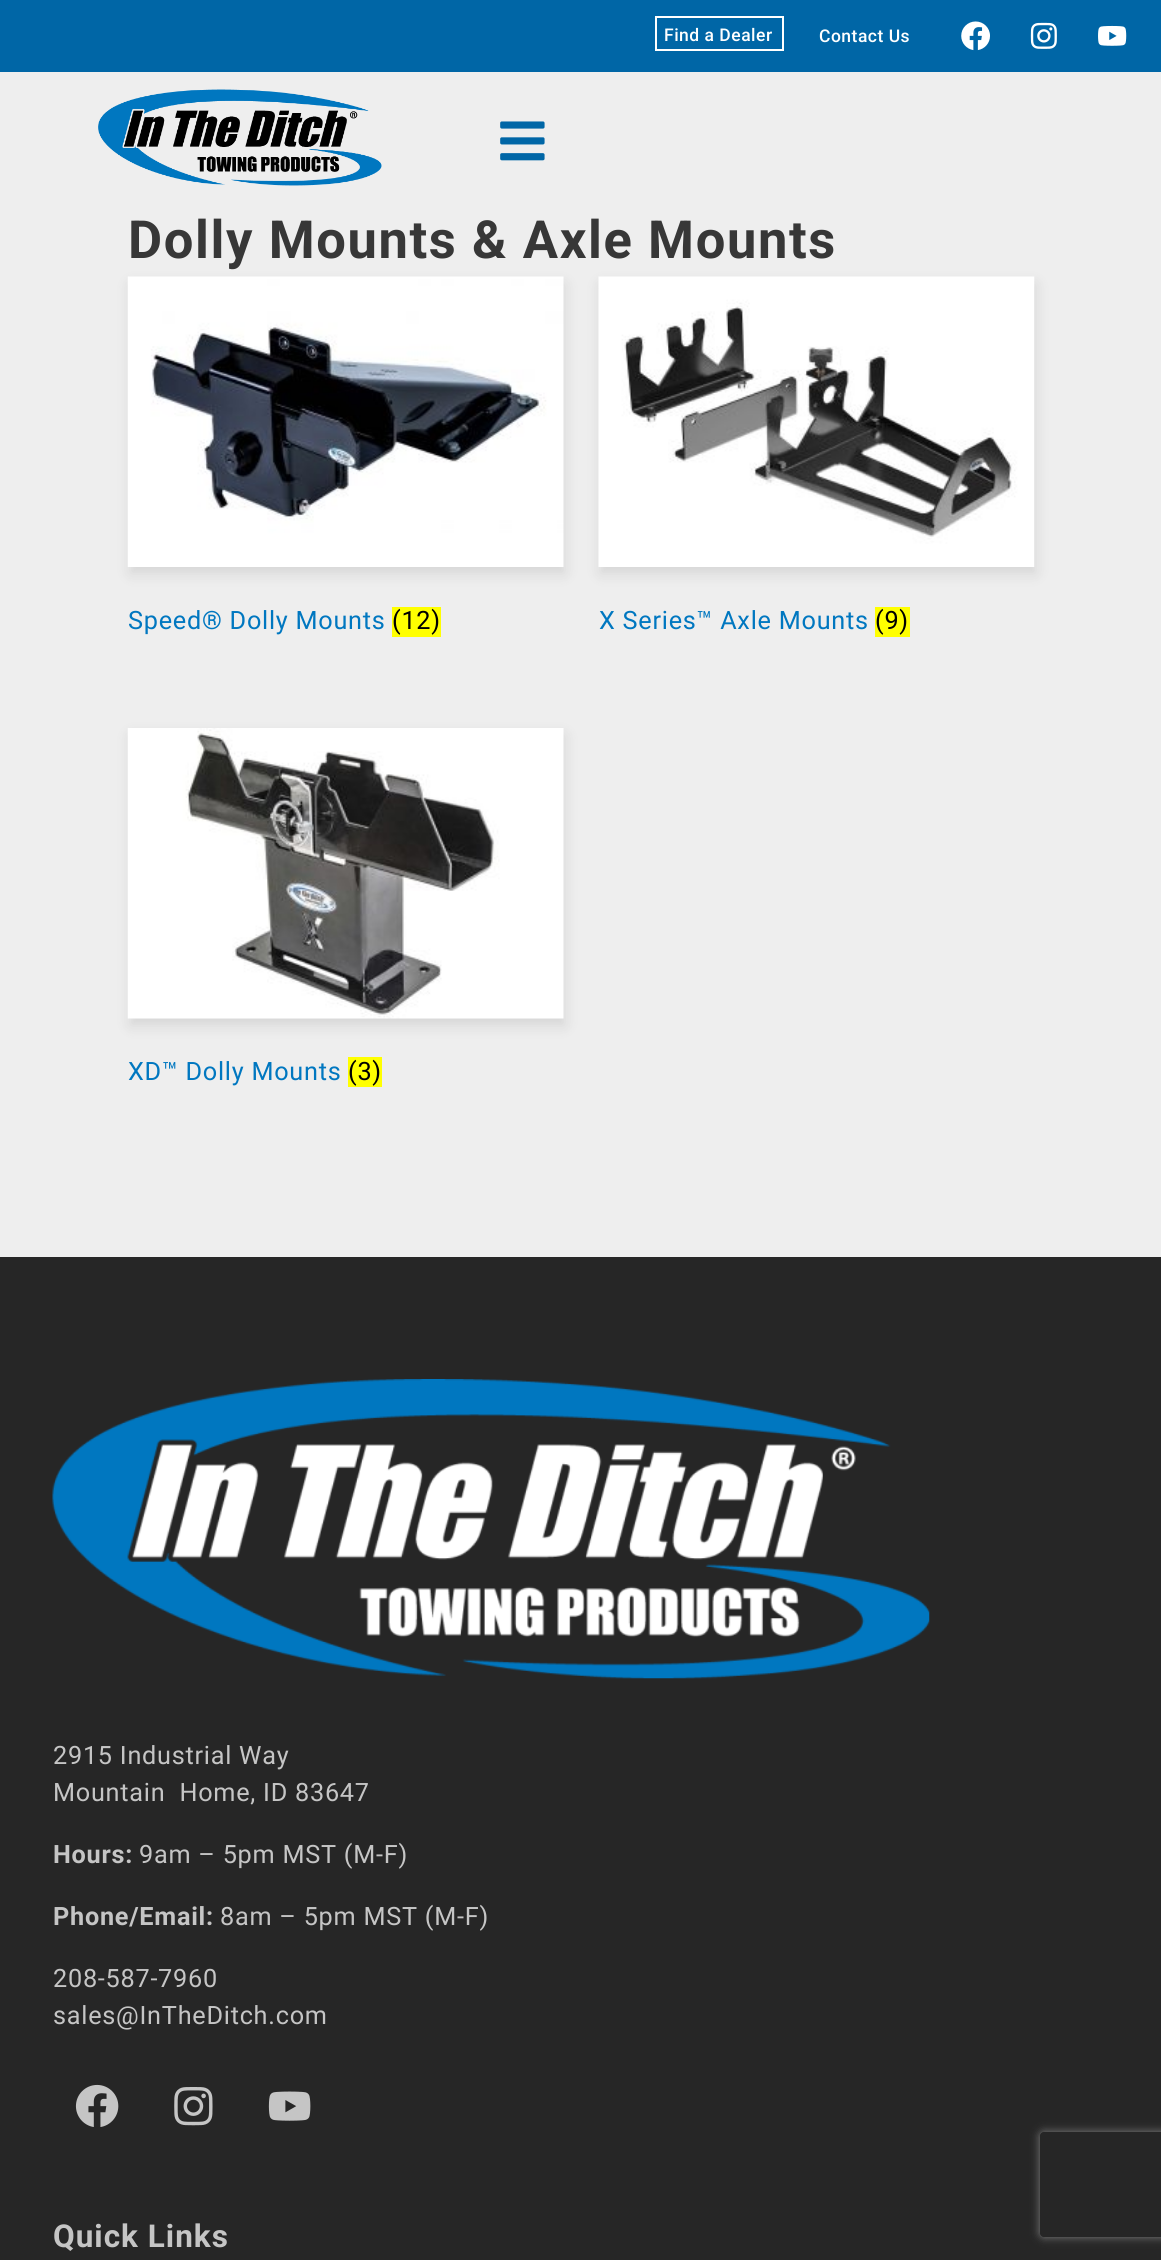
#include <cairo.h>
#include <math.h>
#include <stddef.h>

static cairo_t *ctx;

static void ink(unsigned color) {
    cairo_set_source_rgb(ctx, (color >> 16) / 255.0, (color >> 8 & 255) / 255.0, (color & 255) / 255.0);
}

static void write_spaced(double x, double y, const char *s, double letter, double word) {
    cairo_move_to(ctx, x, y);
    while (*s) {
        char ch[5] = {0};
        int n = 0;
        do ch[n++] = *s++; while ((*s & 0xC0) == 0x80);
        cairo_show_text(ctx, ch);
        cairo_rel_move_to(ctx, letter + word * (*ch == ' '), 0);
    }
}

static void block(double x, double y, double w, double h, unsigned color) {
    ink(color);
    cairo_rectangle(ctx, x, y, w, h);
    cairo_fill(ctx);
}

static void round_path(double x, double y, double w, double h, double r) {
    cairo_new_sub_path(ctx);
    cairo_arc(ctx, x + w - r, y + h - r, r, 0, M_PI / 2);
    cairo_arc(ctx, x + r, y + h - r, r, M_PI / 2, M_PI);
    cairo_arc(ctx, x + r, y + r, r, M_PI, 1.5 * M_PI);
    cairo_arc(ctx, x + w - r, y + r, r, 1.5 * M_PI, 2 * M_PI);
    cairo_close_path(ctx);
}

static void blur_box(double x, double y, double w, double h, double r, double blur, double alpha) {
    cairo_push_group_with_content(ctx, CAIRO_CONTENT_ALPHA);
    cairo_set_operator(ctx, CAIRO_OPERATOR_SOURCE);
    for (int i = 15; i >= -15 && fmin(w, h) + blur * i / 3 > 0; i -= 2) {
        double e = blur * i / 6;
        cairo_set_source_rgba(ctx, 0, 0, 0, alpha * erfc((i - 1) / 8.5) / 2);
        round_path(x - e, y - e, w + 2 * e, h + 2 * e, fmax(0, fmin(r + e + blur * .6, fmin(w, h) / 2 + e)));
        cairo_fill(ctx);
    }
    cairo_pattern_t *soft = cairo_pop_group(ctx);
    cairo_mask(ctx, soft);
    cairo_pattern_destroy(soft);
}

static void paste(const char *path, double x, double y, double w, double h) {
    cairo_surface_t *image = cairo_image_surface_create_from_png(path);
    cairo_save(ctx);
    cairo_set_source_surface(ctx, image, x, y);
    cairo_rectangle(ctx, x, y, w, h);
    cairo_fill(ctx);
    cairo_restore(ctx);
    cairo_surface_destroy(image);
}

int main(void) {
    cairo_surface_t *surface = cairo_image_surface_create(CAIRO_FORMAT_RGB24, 1161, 2260);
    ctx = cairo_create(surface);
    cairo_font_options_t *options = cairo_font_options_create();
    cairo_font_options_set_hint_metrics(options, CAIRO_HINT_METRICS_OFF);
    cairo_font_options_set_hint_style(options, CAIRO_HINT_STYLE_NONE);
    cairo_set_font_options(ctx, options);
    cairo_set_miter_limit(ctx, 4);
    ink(0xeeeeee);
    cairo_paint(ctx);
    block(0, 0, 1161, 72, 0x0066a6);
    cairo_rectangle(ctx, 656, 17, 127, 33);
    ink(0xffffff);
    cairo_stroke(ctx);
    cairo_select_font_face(ctx, "Roboto Medium", CAIRO_FONT_SLANT_NORMAL, CAIRO_FONT_WEIGHT_NORMAL);
    cairo_set_font_size(ctx, 17.5);
    write_spaced(664, 41, "Find a Dealer", 0.5, 0);
    write_spaced(819, 42, "Contact Us", 0.5, 0);
    paste("pic1.png", 961, 21, 29, 30);
    paste("pic2.png", 1030, 22, 27, 27);
    paste("pic3.png", 1098, 25, 29, 21);
    paste("pic4.png", 98, 89, 284, 97);
    paste("pic5.png", 500, 121, 45, 40);
    cairo_select_font_face(ctx, "Roboto", CAIRO_FONT_SLANT_NORMAL, CAIRO_FONT_WEIGHT_BOLD);
    cairo_set_font_size(ctx, 52.5);
    ink(0x373737);
    write_spaced(128, 258, "Dolly Mounts & Axle Mounts", 1.6, 0);
    ink(0x000000);
    blur_box(130, 284, 435, 290, 0, 7, 0.1);
    paste("pic6.png", 127, 276, 437, 291);
    cairo_select_font_face(ctx, "Roboto", CAIRO_FONT_SLANT_NORMAL, CAIRO_FONT_WEIGHT_NORMAL);
    cairo_set_font_size(ctx, 25.25);
    ink(0x0077c0);
    write_spaced(128, 629, "Speed® Dolly Mounts", 0.75, 0);
    block(392, 607, 49, 30, 0xffff00);
    ink(0x000000);
    write_spaced(392, 629, "(12)", 0.75, 0);
    ink(0x000000);
    blur_box(600, 284, 436, 290, 0, 7, 0.1);
    paste("pic7.png", 598, 276, 437, 291);
    ink(0x0077c0);
    write_spaced(599, 629, "X Series™ Axle Mounts", 0.75, 0);
    block(875, 607, 35, 30, 0xffff00);
    ink(0x000000);
    write_spaced(875, 629, "(9)", 0.75, 0);
    ink(0x000000);
    blur_box(130, 735, 435, 291, 0, 7, 0.1);
    paste("pic8.png", 127, 728, 437, 291);
    ink(0x0077c0);
    write_spaced(128, 1080, "XD™ Dolly Mounts", 0.75, 0);
    block(348, 1057, 34, 30, 0xffff00);
    ink(0x000000);
    write_spaced(348, 1080, "(3)", 0.75, 0);
    block(0, 1257, 1161, 1003, 0x262626);
    paste("pic9.png", 52, 1379, 878, 300);
    ink(0xc5c5c5);
    write_spaced(53, 1764, "2915 Industrial Way", 0.75, 0);
    write_spaced(53, 1801, "Mountain  Home, ID 83647", 0.75, 0);
    cairo_select_font_face(ctx, "Roboto", CAIRO_FONT_SLANT_NORMAL, CAIRO_FONT_WEIGHT_BOLD);
    write_spaced(53, 1863, "Hours:", 0.75, 0);
    cairo_select_font_face(ctx, "Roboto", CAIRO_FONT_SLANT_NORMAL, CAIRO_FONT_WEIGHT_NORMAL);
    write_spaced(139, 1863, "9am – 5pm MST (M-F)", 0.75, 0);
    cairo_select_font_face(ctx, "Roboto", CAIRO_FONT_SLANT_NORMAL, CAIRO_FONT_WEIGHT_BOLD);
    write_spaced(53, 1925, "Phone/Email:", 0.75, 0);
    cairo_select_font_face(ctx, "Roboto", CAIRO_FONT_SLANT_NORMAL, CAIRO_FONT_WEIGHT_NORMAL);
    write_spaced(220, 1925, "8am – 5pm MST (M-F)", 0.75, 0);
    write_spaced(53, 1987, "208-587-7960", 0.75, 0);
    write_spaced(53, 2024, "sales@InTheDitch.com", 0.75, 0);
    paste("pic10.png", 75, 2084, 44, 43);
    paste("pic11.png", 174, 2087, 39, 39);
    paste("pic12.png", 268, 2091, 43, 30);
    cairo_select_font_face(ctx, "Roboto", CAIRO_FONT_SLANT_NORMAL, CAIRO_FONT_WEIGHT_BOLD);
    cairo_set_font_size(ctx, 31.5);
    write_spaced(53, 2247, "Quick Links", 1, 0);
    cairo_save(ctx);
    cairo_set_fill_rule(ctx, CAIRO_FILL_RULE_EVEN_ODD);
    cairo_new_path(ctx);
    cairo_move_to(ctx, 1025, 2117);
    cairo_line_to(ctx, 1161, 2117);
    cairo_line_to(ctx, 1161, 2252);
    cairo_line_to(ctx, 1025, 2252);
    cairo_close_path(ctx);
    cairo_move_to(ctx, 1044, 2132);
    cairo_line_to(ctx, 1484, 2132);
    cairo_curve_to(ctx, 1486, 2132, 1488, 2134, 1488, 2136);
    cairo_line_to(ctx, 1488, 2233);
    cairo_curve_to(ctx, 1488, 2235, 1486, 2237, 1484, 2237);
    cairo_line_to(ctx, 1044, 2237);
    cairo_curve_to(ctx, 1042, 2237, 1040, 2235, 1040, 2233);
    cairo_line_to(ctx, 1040, 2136);
    cairo_curve_to(ctx, 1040, 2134, 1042, 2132, 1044, 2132);
    cairo_close_path(ctx);
    cairo_clip(ctx);
    ink(0x808080);
    blur_box(1040, 2132, 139, 105, 4, 4.5, 1);
    cairo_restore(ctx);
    cairo_surface_write_to_png(surface, "screenshot.png");
    cairo_font_options_destroy(options);
    cairo_destroy(ctx);
    cairo_surface_destroy(surface);
    return 0;
}
